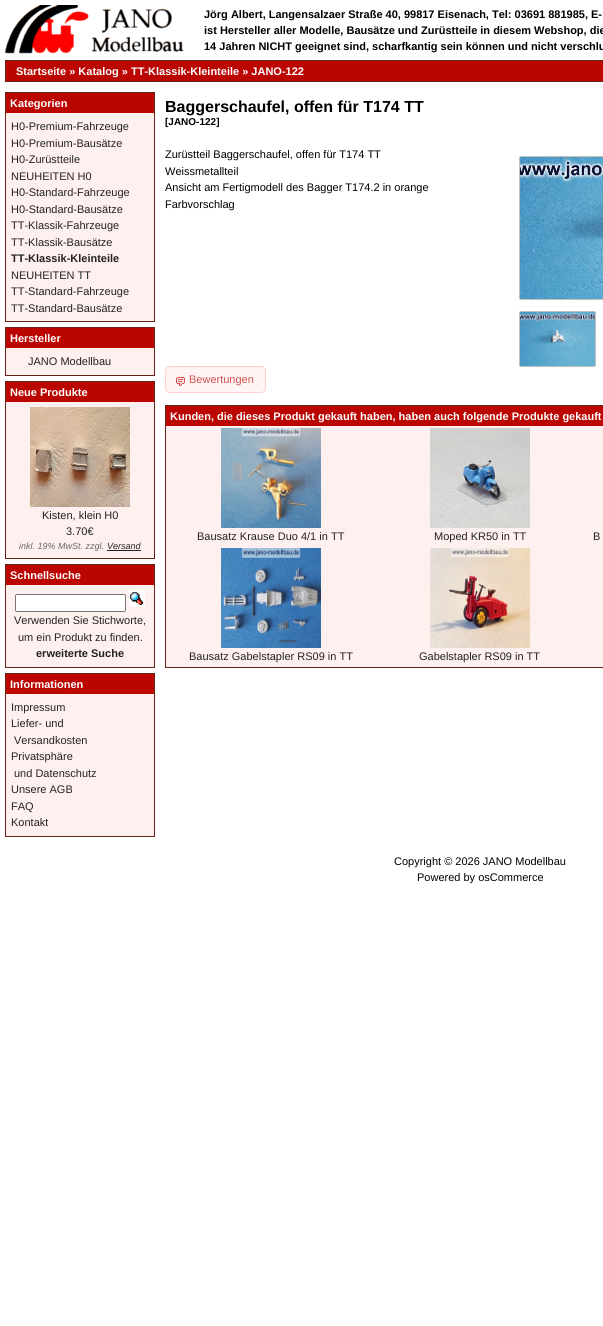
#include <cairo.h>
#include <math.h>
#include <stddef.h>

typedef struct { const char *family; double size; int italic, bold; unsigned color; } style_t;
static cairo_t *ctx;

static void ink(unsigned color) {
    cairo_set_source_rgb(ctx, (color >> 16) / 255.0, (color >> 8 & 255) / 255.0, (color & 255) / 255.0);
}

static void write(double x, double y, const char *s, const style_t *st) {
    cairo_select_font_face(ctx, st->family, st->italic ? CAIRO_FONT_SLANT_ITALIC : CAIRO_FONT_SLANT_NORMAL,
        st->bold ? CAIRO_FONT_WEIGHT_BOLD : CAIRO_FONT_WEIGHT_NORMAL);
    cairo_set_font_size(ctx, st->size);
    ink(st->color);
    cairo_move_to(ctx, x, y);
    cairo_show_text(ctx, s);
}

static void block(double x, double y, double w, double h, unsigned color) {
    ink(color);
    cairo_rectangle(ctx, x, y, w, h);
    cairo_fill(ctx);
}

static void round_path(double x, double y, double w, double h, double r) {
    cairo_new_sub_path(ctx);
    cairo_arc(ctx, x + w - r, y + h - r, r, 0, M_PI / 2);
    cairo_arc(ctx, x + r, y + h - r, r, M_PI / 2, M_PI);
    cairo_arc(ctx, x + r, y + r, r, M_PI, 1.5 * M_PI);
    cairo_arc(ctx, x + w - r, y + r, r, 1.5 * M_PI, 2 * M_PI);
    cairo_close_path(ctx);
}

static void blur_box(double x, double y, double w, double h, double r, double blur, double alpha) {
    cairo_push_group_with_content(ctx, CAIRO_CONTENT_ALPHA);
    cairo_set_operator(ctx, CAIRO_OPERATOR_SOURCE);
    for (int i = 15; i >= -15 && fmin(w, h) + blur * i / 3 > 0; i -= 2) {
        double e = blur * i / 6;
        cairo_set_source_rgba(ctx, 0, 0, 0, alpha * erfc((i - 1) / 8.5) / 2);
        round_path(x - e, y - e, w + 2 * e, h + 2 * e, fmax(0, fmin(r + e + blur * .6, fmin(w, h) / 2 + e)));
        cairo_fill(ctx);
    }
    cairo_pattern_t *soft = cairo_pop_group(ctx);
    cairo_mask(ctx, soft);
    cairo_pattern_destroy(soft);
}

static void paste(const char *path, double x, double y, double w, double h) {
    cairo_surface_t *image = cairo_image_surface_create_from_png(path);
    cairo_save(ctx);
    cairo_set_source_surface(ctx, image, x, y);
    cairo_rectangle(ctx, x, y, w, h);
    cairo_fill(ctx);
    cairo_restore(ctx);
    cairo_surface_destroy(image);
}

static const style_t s1 = {"Liberation Sans", 11, 0, 1, 0x000000};
static const style_t s2 = {"Liberation Sans", 11, 0, 1, 0xffffff};
static const style_t s3 = {"Liberation Sans", 11, 0, 0, 0x222222};
static const style_t s4 = {"Liberation Sans", 11, 0, 1, 0x222222};
static const style_t s5 = {"Liberation Sans", 9, 1, 0, 0x666666};
static const style_t s6 = {"Liberation Sans", 9, 1, 0, 0x222222};
static const style_t s7 = {"Liberation Sans", 16, 0, 1, 0x000000};
static const style_t s8 = {"Liberation Sans", 10, 0, 1, 0x000000};
static const style_t s9 = {"Liberation Sans", 11, 0, 0, 0x000000};
static const style_t s10 = {"Liberation Sans", 11, 0, 0, 0xcf504d};

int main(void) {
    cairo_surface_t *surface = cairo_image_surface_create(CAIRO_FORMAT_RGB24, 603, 1326);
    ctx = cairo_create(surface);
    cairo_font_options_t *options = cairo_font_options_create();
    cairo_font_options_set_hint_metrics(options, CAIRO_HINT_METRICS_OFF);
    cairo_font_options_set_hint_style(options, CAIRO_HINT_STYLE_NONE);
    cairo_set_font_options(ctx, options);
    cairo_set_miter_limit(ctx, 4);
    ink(0xffffff);
    cairo_paint(ctx);
    paste("pic1.png", 5, 5, 179, 49);
    write(204, 18, "Jörg Albert, Langensalzaer Straße 40, 99817 Eisenach, Tel: 03691 881985, E-", &s1);
    write(204, 34, "ist Hersteller aller Modelle, Bausätze und Zurüstteile in diesem Webshop, die", &s1);
    write(204, 50, "14 Jahren NICHT geeignet sind, scharfkantig sein können und nicht verschlu", &s1);
    cairo_rectangle(ctx, 5.5, 60.5, 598, 21);
    ink(0x682217);
    cairo_set_line_width(ctx, 1);
    cairo_stroke(ctx);
    block(6, 61, 597, 20, 0xba0501);
    write(16, 75, "Startseite » Katalog » TT-Klassik-Kleinteile » JANO-122", &s2);
    block(6, 113, 148, 208, 0xfff0f0);
    cairo_rectangle(ctx, 5.5, 92.5, 149, 229);
    ink(0x682217);
    cairo_stroke(ctx);
    block(6, 93, 148, 20, 0xba0501);
    write(10, 107, "Kategorien", &s2);
    write(11, 130, "H0-Premium-Fahrzeuge", &s3);
    write(11, 147, "H0-Premium-Bausätze", &s3);
    write(11, 163, "H0-Zurüstteile", &s3);
    write(11, 180, "NEUHEITEN H0", &s3);
    write(11, 196, "H0-Standard-Fahrzeuge", &s3);
    write(11, 213, "H0-Standard-Bausätze", &s3);
    write(11, 229, "TT-Klassik-Fahrzeuge", &s3);
    write(11, 246, "TT-Klassik-Bausätze", &s3);
    write(11, 262, "TT-Klassik-Kleinteile", &s4);
    write(11, 279, "NEUHEITEN TT", &s3);
    write(11, 295, "TT-Standard-Fahrzeuge", &s3);
    write(11, 312, "TT-Standard-Bausätze", &s3);
    block(6, 348, 148, 27, 0xfff0f0);
    cairo_rectangle(ctx, 5.5, 327.5, 149, 48);
    ink(0x682217);
    cairo_stroke(ctx);
    block(6, 328, 148, 20, 0xba0501);
    write(10, 342, "Hersteller", &s2);
    write(28, 365, "JANO Modellbau", &s3);
    block(6, 402, 148, 156, 0xfff0f0);
    cairo_rectangle(ctx, 5.5, 381.5, 149, 177);
    ink(0x682217);
    cairo_stroke(ctx);
    block(6, 382, 148, 20, 0xba0501);
    write(10, 396, "Neue Produkte", &s2);
    paste("pic2.png", 30, 407, 100, 100);
    write(42, 519, "Kisten, klein H0", &s3);
    write(66, 535, "3.70€", &s3);
    write(19, 549, "inkl. 19% MwSt. zzgl.", &s5);
    write(107, 549, "Versand", &s6);
    block(107, 550, 34, 1, 0x222222);
    block(6, 585, 148, 82, 0xfff0f0);
    cairo_rectangle(ctx, 5.5, 564.5, 149, 103);
    ink(0x682217);
    cairo_stroke(ctx);
    block(6, 565, 148, 20, 0xba0501);
    write(10, 579, "Schnellsuche", &s2);
    round_path(15.5, 594.5, 110, 17, 1.5);
    cairo_fill_preserve(ctx);
    ink(0x767676);
    cairo_stroke(ctx);
    paste("pic3.png", 129, 590, 16, 17);
    write(14, 624, "Verwenden Sie Stichworte,", &s3);
    write(18, 641, "um ein Produkt zu finden.", &s3);
    write(36, 657, "erweiterte Suche", &s4);
    block(6, 694, 148, 142, 0xfff0f0);
    cairo_rectangle(ctx, 5.5, 673.5, 149, 163);
    ink(0x682217);
    cairo_stroke(ctx);
    block(6, 674, 148, 20, 0xba0501);
    write(10, 688, "Informationen", &s2);
    write(11, 711, "Impressum", &s3);
    write(11, 727, "Liefer- und", &s3);
    write(14, 744, "Versandkosten", &s3);
    write(11, 760, "Privatsphäre", &s3);
    write(14, 777, "und Datenschutz", &s3);
    write(11, 793, "Unsere AGB", &s3);
    write(11, 810, "FAQ", &s3);
    write(11, 826, "Kontakt", &s3);
    write(165, 112, "Baggerschaufel, offen für T174 TT", &s7);
    write(165, 125, "[JANO-122]", &s8);
    write(165, 158, "Zurüstteil Baggerschaufel, offen für T174 TT", &s9);
    ink(0x000000);
    blur_box(520, 157, 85, 142, 0, 0.5, 1);
    paste("pic4.png", 520, 157, 83, 142);
    blur_box(520, 312, 75, 54, 0, 0.5, 1);
    paste("pic5.png", 520, 312, 75, 54);
    write(165, 175, "Weissmetallteil", &s9);
    write(165, 191, "Ansicht am Fertigmodell des Bagger T174.2 in orange", &s9);
    write(165, 208, "Farbvorschlag", &s9);
    ink(0xfff5f5);
    round_path(165.5, 366.5, 100, 26, 4.5);
    cairo_fill_preserve(ctx);
    ink(0xffcfcf);
    cairo_stroke(ctx);
    paste("pic6.png", 176, 377, 9, 9);
    write(189, 383, "Bewertungen", &s10);
    block(166, 426, 437, 241, 0xfff0f0);
    cairo_rectangle(ctx, 165.5, 405.5, 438, 262);
    ink(0x682217);
    cairo_stroke(ctx);
    block(166, 406, 437, 20, 0xba0501);
    write(170, 420, "Kunden, die dieses Produkt gekauft haben, haben auch folgende Produkte gekauft", &s2);
    paste("pic7.png", 221, 428, 100, 100);
    write(197, 540, "Bausatz Krause Duo 4/1 in TT", &s3);
    paste("pic8.png", 430, 428, 100, 100);
    write(434, 540, "Moped KR50 in TT", &s3);
    write(593, 540, "B", &s3);
    paste("pic9.png", 221, 548, 100, 100);
    write(189, 660, "Bausatz Gabelstapler RS09 in TT", &s3);
    paste("pic10.png", 430, 548, 100, 100);
    write(419, 660, "Gabelstapler RS09 in TT", &s3);
    write(394, 865, "Copyright © 2026 JANO Modellbau", &s9);
    write(417, 881, "Powered by osCommerce", &s9);
    cairo_surface_write_to_png(surface, "screenshot.png");
    cairo_font_options_destroy(options);
    cairo_destroy(ctx);
    cairo_surface_destroy(surface);
    return 0;
}
